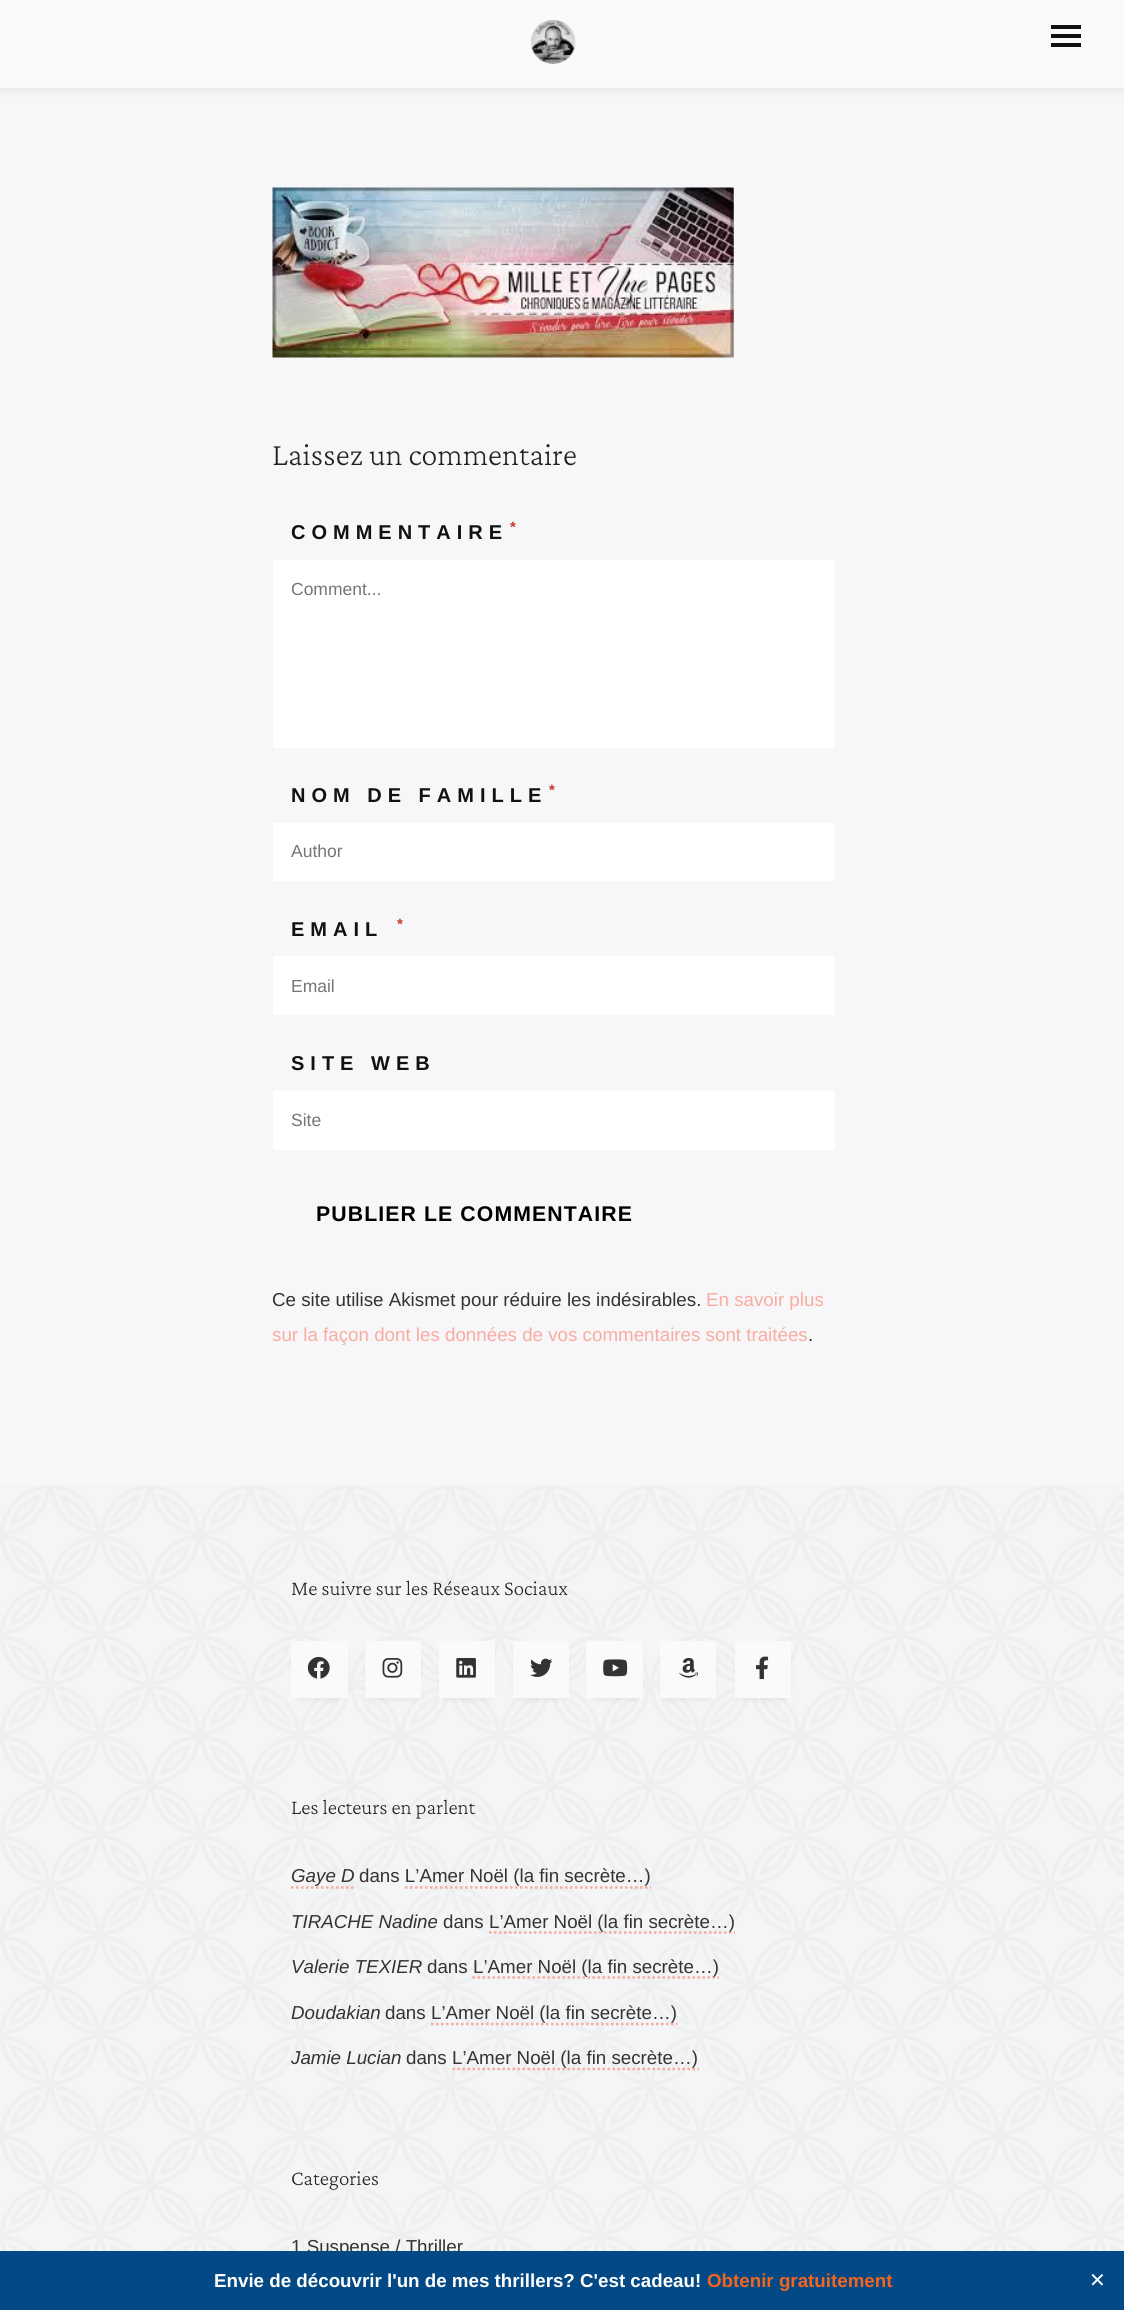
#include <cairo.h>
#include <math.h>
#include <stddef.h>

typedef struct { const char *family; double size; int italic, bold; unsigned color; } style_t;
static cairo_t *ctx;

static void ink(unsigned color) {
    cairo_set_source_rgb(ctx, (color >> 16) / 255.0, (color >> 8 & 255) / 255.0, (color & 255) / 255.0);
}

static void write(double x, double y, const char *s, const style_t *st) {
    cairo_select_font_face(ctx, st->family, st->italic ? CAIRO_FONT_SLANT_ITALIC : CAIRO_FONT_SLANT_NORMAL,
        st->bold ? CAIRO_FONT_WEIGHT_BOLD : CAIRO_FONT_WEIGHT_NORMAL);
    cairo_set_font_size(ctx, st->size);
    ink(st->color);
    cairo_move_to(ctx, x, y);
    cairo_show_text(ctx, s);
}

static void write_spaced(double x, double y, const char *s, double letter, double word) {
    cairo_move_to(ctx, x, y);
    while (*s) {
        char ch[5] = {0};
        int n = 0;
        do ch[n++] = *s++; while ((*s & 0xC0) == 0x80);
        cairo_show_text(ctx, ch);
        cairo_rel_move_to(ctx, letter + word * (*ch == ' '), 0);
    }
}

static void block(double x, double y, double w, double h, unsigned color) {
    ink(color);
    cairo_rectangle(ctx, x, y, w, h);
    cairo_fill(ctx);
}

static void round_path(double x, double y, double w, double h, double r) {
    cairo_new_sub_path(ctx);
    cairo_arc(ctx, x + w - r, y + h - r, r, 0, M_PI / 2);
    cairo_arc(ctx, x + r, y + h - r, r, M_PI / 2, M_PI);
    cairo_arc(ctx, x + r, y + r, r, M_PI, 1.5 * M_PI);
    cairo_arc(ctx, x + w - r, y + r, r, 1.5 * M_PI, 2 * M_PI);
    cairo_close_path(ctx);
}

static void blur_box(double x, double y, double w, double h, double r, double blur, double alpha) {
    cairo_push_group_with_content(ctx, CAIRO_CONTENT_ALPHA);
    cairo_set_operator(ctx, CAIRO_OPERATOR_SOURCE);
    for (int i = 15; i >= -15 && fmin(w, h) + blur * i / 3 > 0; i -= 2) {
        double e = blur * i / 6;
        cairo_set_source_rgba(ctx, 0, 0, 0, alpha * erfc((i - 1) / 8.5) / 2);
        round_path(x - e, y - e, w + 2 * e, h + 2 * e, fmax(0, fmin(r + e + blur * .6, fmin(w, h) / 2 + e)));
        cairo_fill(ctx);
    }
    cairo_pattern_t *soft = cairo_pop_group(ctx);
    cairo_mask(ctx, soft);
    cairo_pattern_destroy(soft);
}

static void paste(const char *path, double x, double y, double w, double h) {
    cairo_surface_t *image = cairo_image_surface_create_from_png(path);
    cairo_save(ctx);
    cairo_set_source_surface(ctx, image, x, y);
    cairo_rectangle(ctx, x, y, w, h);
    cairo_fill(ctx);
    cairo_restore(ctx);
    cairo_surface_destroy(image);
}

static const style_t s1 = {"Crimson Pro ExtraLight", 32.5, 0, 0, 0x222222};
static const style_t s2 = {"Liberation Sans", 17.5, 0, 0, 0x757575};
static const style_t s3 = {"Liberation Sans", 18.75, 0, 0, 0x333333};
static const style_t s4 = {"Liberation Sans", 18.75, 0, 0, 0xfaab9f};
static const style_t s5 = {"Crimson Pro ExtraLight", 21.25, 0, 0, 0x222222};
static const style_t s6 = {"Liberation Sans", 18.75, 1, 0, 0x333333};
static const style_t s7 = {"Liberation Sans", 18.75, 0, 1, 0xffffff};
static const style_t s8 = {"Liberation Sans", 18.75, 0, 1, 0xf16521};
static const style_t s9 = {"DejaVu Sans", 20, 0, 0, 0xffffff};

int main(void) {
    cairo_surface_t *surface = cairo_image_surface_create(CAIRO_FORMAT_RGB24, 1124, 2310);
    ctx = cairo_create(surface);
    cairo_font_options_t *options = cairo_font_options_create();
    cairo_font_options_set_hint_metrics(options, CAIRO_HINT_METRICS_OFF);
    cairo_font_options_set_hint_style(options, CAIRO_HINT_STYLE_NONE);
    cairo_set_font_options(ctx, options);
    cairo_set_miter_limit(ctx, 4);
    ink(0xf7f7fa);
    cairo_paint(ctx);
    ink(0x000000);
    blur_box(-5, -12, 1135, 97, 0, 6, 0.2);
    block(0, 0, 1124, 88, 0xfafafa);
    paste("pic1.png", 531, 20, 45, 44);
    block(1051, 25, 30, 4, 0x111111);
    block(1051, 34, 30, 4, 0x111111);
    block(1051, 43, 30, 4, 0x111111);
    paste("pic2.png", 272, 187, 462, 171);
    write(272, 465, "Laissez un commentaire", &s1);
    cairo_select_font_face(ctx, "Liberation Sans", CAIRO_FONT_SLANT_NORMAL, CAIRO_FONT_WEIGHT_BOLD);
    cairo_set_font_size(ctx, 20);
    ink(0x111111);
    write_spaced(291, 539, "COMMENTAIRE", 6, 0);
    cairo_set_font_size(ctx, 15);
    ink(0xc0392b);
    write_spaced(510, 532, "*", 6, 0);
    block(273, 560, 562, 188, 0xffffff);
    write(291, 595, "Comment...", &s2);
    cairo_select_font_face(ctx, "Liberation Sans", CAIRO_FONT_SLANT_NORMAL, CAIRO_FONT_WEIGHT_BOLD);
    cairo_set_font_size(ctx, 20);
    ink(0x111111);
    write_spaced(291, 802, "NOM DE FAMILLE", 6, 0);
    cairo_set_font_size(ctx, 15);
    ink(0xc0392b);
    write_spaced(549, 795, "*", 6, 0);
    block(273, 823, 562, 58, 0xffffff);
    write(291, 857, "Author", &s2);
    cairo_select_font_face(ctx, "Liberation Sans", CAIRO_FONT_SLANT_NORMAL, CAIRO_FONT_WEIGHT_BOLD);
    cairo_set_font_size(ctx, 20);
    ink(0x111111);
    write_spaced(291, 936, "EMAIL", 6, 0);
    cairo_set_font_size(ctx, 15);
    ink(0xc0392b);
    write_spaced(397, 929, "*", 6, 0);
    block(273, 956, 562, 59, 0xffffff);
    write(291, 992, "Email", &s2);
    cairo_select_font_face(ctx, "Liberation Sans", CAIRO_FONT_SLANT_NORMAL, CAIRO_FONT_WEIGHT_BOLD);
    cairo_set_font_size(ctx, 20);
    ink(0x111111);
    write_spaced(291, 1070, "SITE WEB", 6, 0);
    block(273, 1091, 562, 59, 0xffffff);
    write(291, 1126, "Site", &s2);
    cairo_select_font_face(ctx, "Liberation Sans", CAIRO_FONT_SLANT_NORMAL, CAIRO_FONT_WEIGHT_BOLD);
    cairo_set_font_size(ctx, 21.25);
    ink(0x000000);
    write_spaced(316, 1221, "PUBLIER LE COMMENTAIRE", 1.1, 0);
    write(272, 1306, "Ce site utilise Akismet pour réduire les indésirables.", &s3);
    write(706, 1306, "En savoir plus", &s4);
    write(272, 1341, "sur la façon dont les données de vos commentaires sont traitées", &s4);
    write(808, 1341, ".", &s3);
    paste("pic3.png", 0, 1485, 1124, 766);
    write(291, 1595, "Me suivre sur les Réseaux Sociaux", &s5);
    ink(0x000000);
    blur_box(300, 1654, 39, 39, 0, 5.5, 0.3);
    block(291, 1641, 57, 57, 0xfafafa);
    paste("pic4.png", 307, 1656, 23, 23);
    ink(0x000000);
    blur_box(374, 1654, 39, 39, 0, 5.5, 0.3);
    block(365, 1641, 56, 57, 0xfafafa);
    paste("pic5.png", 382, 1658, 21, 20);
    ink(0x000000);
    blur_box(448, 1654, 38, 39, 0, 5.5, 0.3);
    block(439, 1641, 56, 57, 0xfafafa);
    paste("pic6.png", 456, 1658, 20, 20);
    ink(0x000000);
    blur_box(521, 1654, 39, 39, 0, 5.5, 0.3);
    block(513, 1641, 56, 57, 0xfafafa);
    paste("pic7.png", 530, 1658, 23, 19);
    ink(0x000000);
    blur_box(595, 1654, 39, 39, 0, 5.5, 0.3);
    block(586, 1641, 57, 57, 0xfafafa);
    paste("pic8.png", 603, 1659, 25, 18);
    ink(0x000000);
    blur_box(669, 1654, 39, 39, 0, 5.5, 0.3);
    block(660, 1641, 56, 57, 0xfafafa);
    paste("pic9.png", 679, 1658, 20, 20);
    ink(0x000000);
    blur_box(744, 1654, 39, 39, 0, 5.5, 0.3);
    block(735, 1641, 56, 57, 0xfafafa);
    paste("pic10.png", 756, 1656, 13, 24);
    write(291, 1814, "Les lecteurs en parlent", &s5);
    write(291, 1882, "Gaye D", &s6);
    cairo_new_path(ctx);
    cairo_move_to(ctx, 291, 1887.5);
    cairo_line_to(ctx, 354, 1887.5);
    ink(0xfaab9f);
    cairo_set_line_width(ctx, 2.5);
    cairo_set_dash(ctx, (double[]){2.5, 2.5}, 2, 0);
    cairo_stroke(ctx);
    write(359, 1882, "dans L’Amer Noël (la fin secrète…)", &s3);
    cairo_new_path(ctx);
    cairo_move_to(ctx, 405, 1887.5);
    cairo_line_to(ctx, 651, 1887.5);
    ink(0xfaab9f);
    cairo_stroke(ctx);
    write(291, 1928, "TIRACHE Nadine", &s6);
    write(443, 1928, "dans", &s3);
    cairo_new_path(ctx);
    cairo_move_to(ctx, 489, 1932.5);
    cairo_line_to(ctx, 735, 1932.5);
    ink(0xfaab9f);
    cairo_stroke(ctx);
    write(489, 1928, "L’Amer Noël (la fin secrète…)", &s3);
    write(291, 1973, "Valerie TEXIER", &s6);
    write(427, 1973, "dans", &s3);
    cairo_new_path(ctx);
    cairo_move_to(ctx, 472.5, 1977.5);
    cairo_line_to(ctx, 719, 1977.5);
    ink(0xfaab9f);
    cairo_stroke(ctx);
    write(473, 1973, "L’Amer Noël (la fin secrète…)", &s3);
    write(291, 2019, "Doudakian", &s6);
    write(385, 2019, "dans", &s3);
    cairo_new_path(ctx);
    cairo_move_to(ctx, 431, 2024);
    cairo_line_to(ctx, 677.5, 2024);
    ink(0xfaab9f);
    cairo_stroke(ctx);
    write(431, 2019, "L’Amer Noël (la fin secrète…)", &s3);
    write(291, 2064, "Jamie Lucian", &s6);
    write(406, 2064, "dans", &s3);
    cairo_new_path(ctx);
    cairo_move_to(ctx, 452.5, 2069);
    cairo_line_to(ctx, 699, 2069);
    ink(0xfaab9f);
    cairo_stroke(ctx);
    write(452, 2064, "L’Amer Noël (la fin secrète…)", &s3);
    write(291, 2185, "Categories", &s5);
    write(291, 2253, "1.Suspense / Thriller", &s3);
    block(0, 2251, 1124, 59, 0x024985);
    write(214, 2287, "Envie de découvrir l'un de mes thrillers? C'est cadeau!", &s7);
    write(707, 2287, "Obtenir gratuitement", &s8);
    write(1089, 2287, "✕", &s9);
    cairo_surface_write_to_png(surface, "screenshot.png");
    cairo_font_options_destroy(options);
    cairo_destroy(ctx);
    cairo_surface_destroy(surface);
    return 0;
}
